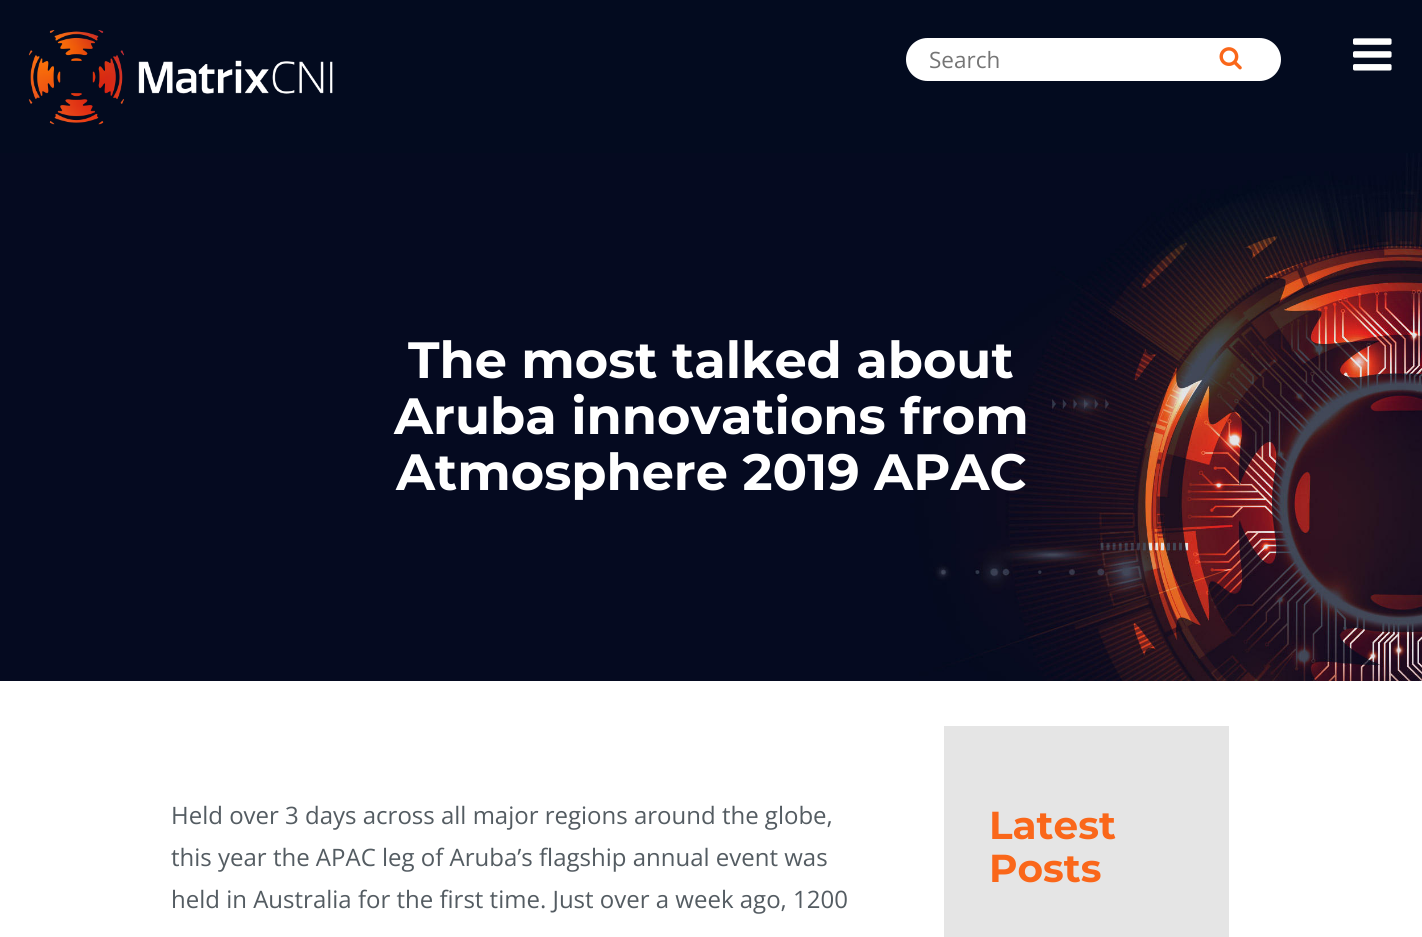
#include <cairo.h>
#include <math.h>
#include <stddef.h>

typedef struct { const char *family; double size; int italic, bold; unsigned color; } style_t;
static cairo_t *ctx;

static void ink(unsigned color) {
    cairo_set_source_rgb(ctx, (color >> 16) / 255.0, (color >> 8 & 255) / 255.0, (color & 255) / 255.0);
}

static void write(double x, double y, const char *s, const style_t *st) {
    cairo_select_font_face(ctx, st->family, st->italic ? CAIRO_FONT_SLANT_ITALIC : CAIRO_FONT_SLANT_NORMAL,
        st->bold ? CAIRO_FONT_WEIGHT_BOLD : CAIRO_FONT_WEIGHT_NORMAL);
    cairo_set_font_size(ctx, st->size);
    ink(st->color);
    cairo_move_to(ctx, x, y);
    cairo_show_text(ctx, s);
}

static void block(double x, double y, double w, double h, unsigned color) {
    ink(color);
    cairo_rectangle(ctx, x, y, w, h);
    cairo_fill(ctx);
}

static void round_path(double x, double y, double w, double h, double r) {
    cairo_new_sub_path(ctx);
    cairo_arc(ctx, x + w - r, y + h - r, r, 0, M_PI / 2);
    cairo_arc(ctx, x + r, y + h - r, r, M_PI / 2, M_PI);
    cairo_arc(ctx, x + r, y + r, r, M_PI, 1.5 * M_PI);
    cairo_arc(ctx, x + w - r, y + r, r, 1.5 * M_PI, 2 * M_PI);
    cairo_close_path(ctx);
}

static void paste(const char *path, double x, double y, double w, double h) {
    cairo_surface_t *image = cairo_image_surface_create_from_png(path);
    cairo_save(ctx);
    cairo_set_source_surface(ctx, image, x, y);
    cairo_rectangle(ctx, x, y, w, h);
    cairo_fill(ctx);
    cairo_restore(ctx);
    cairo_surface_destroy(image);
}

static const style_t s1 = {"Open Sans", 22.5, 0, 0, 0x757575};
static const style_t s2 = {"Montserrat", 51, 0, 1, 0xffffff};
static const style_t s3 = {"Open Sans", 24, 0, 0, 0x545c62};
static const style_t s4 = {"Montserrat", 39, 0, 1, 0xfa671a};

int main(void) {
    cairo_surface_t *surface = cairo_image_surface_create(CAIRO_FORMAT_RGB24, 1422, 937);
    ctx = cairo_create(surface);
    cairo_font_options_t *options = cairo_font_options_create();
    cairo_font_options_set_hint_metrics(options, CAIRO_HINT_METRICS_OFF);
    cairo_font_options_set_hint_style(options, CAIRO_HINT_STYLE_NONE);
    cairo_set_font_options(ctx, options);
    cairo_set_miter_limit(ctx, 4);
    ink(0xffffff);
    cairo_paint(ctx);
    block(0, 0, 1422, 153, 0x030b1f);
    paste("pic1.png", 28, 30, 305, 95);
    ink(0xffffff);
    round_path(908.5, 40.5, 370, 38, 19);
    cairo_fill_preserve(ctx);
    cairo_set_line_width(ctx, 5);
    cairo_stroke(ctx);
    write(929, 68, "Search", &s1);
    paste("pic2.png", 1219, 47, 23, 23);
    paste("pic3.png", 1353, 38, 39, 33);
    paste("pic4.png", 0, 153, 1422, 528);
    write(408, 378, "The most talked about", &s2);
    write(394, 434, "Aruba innovations from", &s2);
    write(396, 490, "Atmosphere 2019 APAC", &s2);
    write(171, 824, "Held over 3 days across all major regions around the globe,", &s3);
    write(171, 866, "this year the APAC leg of Aruba’s flagship annual event was", &s3);
    write(171, 908, "held in Australia for the first time. Just over a week ago, 1200", &s3);
    block(944, 726, 285, 211, 0xe5e5e5);
    write(989, 839, "Latest", &s4);
    write(989, 882, "Posts", &s4);
    cairo_surface_write_to_png(surface, "screenshot.png");
    cairo_font_options_destroy(options);
    cairo_destroy(ctx);
    cairo_surface_destroy(surface);
    return 0;
}
